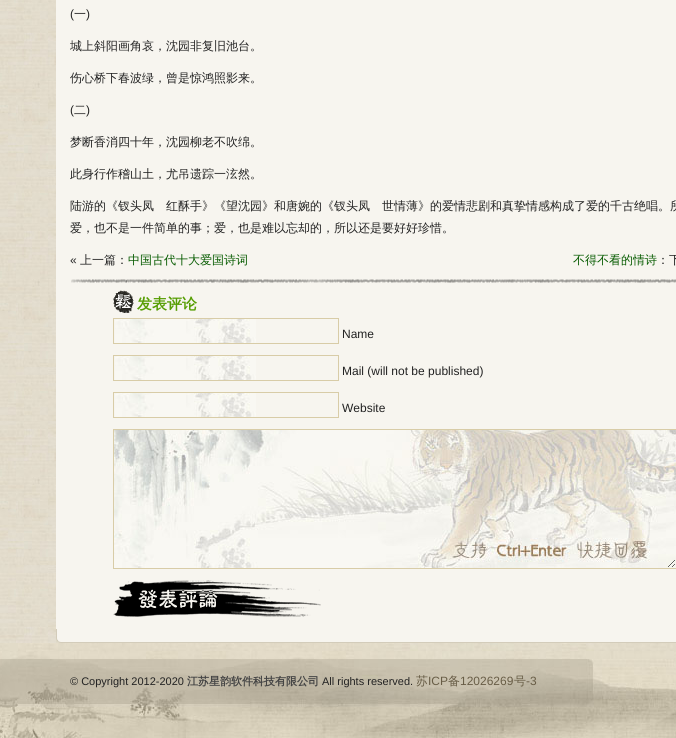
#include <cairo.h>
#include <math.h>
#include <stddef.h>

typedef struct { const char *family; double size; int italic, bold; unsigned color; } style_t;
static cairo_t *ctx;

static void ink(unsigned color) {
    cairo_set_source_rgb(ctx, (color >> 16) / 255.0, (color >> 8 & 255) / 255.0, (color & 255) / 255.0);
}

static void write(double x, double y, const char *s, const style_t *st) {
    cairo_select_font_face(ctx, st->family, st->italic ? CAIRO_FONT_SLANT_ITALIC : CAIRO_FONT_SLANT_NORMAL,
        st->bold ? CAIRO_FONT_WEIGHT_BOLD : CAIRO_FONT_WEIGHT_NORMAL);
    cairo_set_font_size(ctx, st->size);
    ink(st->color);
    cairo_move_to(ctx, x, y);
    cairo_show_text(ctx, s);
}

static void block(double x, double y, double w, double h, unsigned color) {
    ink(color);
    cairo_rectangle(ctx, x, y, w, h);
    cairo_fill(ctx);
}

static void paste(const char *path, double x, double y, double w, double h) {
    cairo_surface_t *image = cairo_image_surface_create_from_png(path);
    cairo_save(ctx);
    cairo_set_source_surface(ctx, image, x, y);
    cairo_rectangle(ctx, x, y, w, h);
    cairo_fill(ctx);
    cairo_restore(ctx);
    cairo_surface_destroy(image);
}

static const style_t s1 = {"Liberation Sans", 12, 0, 0, 0x222222};
static const style_t s2 = {"WenQuanYi Zen Hei Medium", 12, 0, 0, 0x222222};
static const style_t s3 = {"WenQuanYi Zen Hei Medium", 12, 0, 0, 0x065b00};
static const style_t s4 = {"WenQuanYi Zen Hei", 15, 0, 1, 0x579e04};
static const style_t s5 = {"Liberation Sans", 11, 0, 0, 0x222222};
static const style_t s6 = {"WenQuanYi Zen Hei", 11, 0, 1, 0x444444};
static const style_t s7 = {"WenQuanYi Zen Hei Medium", 12, 0, 0, 0x685d46};
static const style_t s8 = {"Liberation Sans", 12, 0, 0, 0x685d46};

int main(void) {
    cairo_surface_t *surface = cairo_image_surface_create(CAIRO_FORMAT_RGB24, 676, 738);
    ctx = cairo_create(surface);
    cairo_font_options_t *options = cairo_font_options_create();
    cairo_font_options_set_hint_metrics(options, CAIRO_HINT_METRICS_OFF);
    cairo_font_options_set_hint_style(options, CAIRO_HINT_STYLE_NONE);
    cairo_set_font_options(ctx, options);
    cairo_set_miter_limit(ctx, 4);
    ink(0xffffff);
    cairo_paint(ctx);
    paste("pic1.png", 0, 0, 56, 643);
    block(56, 0, 620, 629, 0xf7f5ef);
    paste("pic2.png", 71, 279, 605, 4);
    write(70, 18, "(", &s1);
    write(74, 18, "一", &s2);
    write(86, 18, ")", &s1);
    write(70, 50, "城上斜阳画角哀，沈园非复旧池台。", &s2);
    write(70, 82, "伤心桥下春波绿，曾是惊鸿照影来。", &s2);
    write(70, 114, "(", &s1);
    write(74, 114, "二", &s2);
    write(86, 114, ")", &s1);
    write(70, 146, "梦断香消四十年，沈园柳老不吹绵。", &s2);
    write(70, 178, "此身行作稽山土，尤吊遗踪一泫然。", &s2);
    write(70, 210, "陆游的《钗头凤　红酥手》《望沈园》和唐婉的《钗头凤　世情薄》的爱情悲剧和真挚情感构成了爱的千古绝唱。所", &s2);
    write(70, 232, "爱，也不是一件简单的事；爱，也是难以忘却的，所以还是要好好珍惜。", &s2);
    write(70, 264, "«", &s1);
    write(80, 264, "上一篇：", &s2);
    write(128, 264, "中国古代十大爱国诗词", &s3);
    write(573, 264, "不得不看的情诗", &s3);
    write(657, 264, "：下", &s2);
    paste("pic3.png", 113, 290, 21, 23);
    write(137, 309, "发表评论", &s4);
    paste("pic4.png", 115, 319, 141, 24);
    cairo_rectangle(ctx, 113.5, 318.5, 225, 25);
    ink(0xd8cca7);
    cairo_set_line_width(ctx, 1);
    cairo_stroke(ctx);
    write(342, 338, "Name", &s1);
    paste("pic4.png", 115, 356, 141, 24);
    cairo_rectangle(ctx, 113.5, 355.5, 225, 25);
    ink(0xd8cca7);
    cairo_stroke(ctx);
    write(342, 375, "Mail (will not be published)", &s1);
    paste("pic4.png", 115, 393, 141, 24);
    cairo_rectangle(ctx, 113.5, 392.5, 225, 25);
    ink(0xd8cca7);
    cairo_stroke(ctx);
    write(342, 412, "Website", &s1);
    paste("pic5.png", 114, 430, 562, 138);
    cairo_rectangle(ctx, 113.5, 429.5, 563, 139);
    ink(0xd8cca7);
    cairo_stroke(ctx);
    paste("pic6.png", 113, 580, 208, 37);
    paste("pic7.png", 56, 629, 620, 14);
    paste("pic8.png", 0, 643, 676, 95);
    write(70, 685, "© Copyright 2012-2020", &s5);
    write(187, 685, "江苏星韵软件科技有限公司", &s6);
    write(322, 685, "All rights reserved.", &s5);
    write(416, 685, "苏", &s7);
    write(428, 685, "ICP", &s8);
    write(448, 685, "备", &s7);
    write(460, 685, "12026269", &s8);
    write(514, 685, "号", &s7);
    write(526, 685, "-3", &s8);
    cairo_surface_write_to_png(surface, "screenshot.png");
    cairo_font_options_destroy(options);
    cairo_destroy(ctx);
    cairo_surface_destroy(surface);
    return 0;
}
